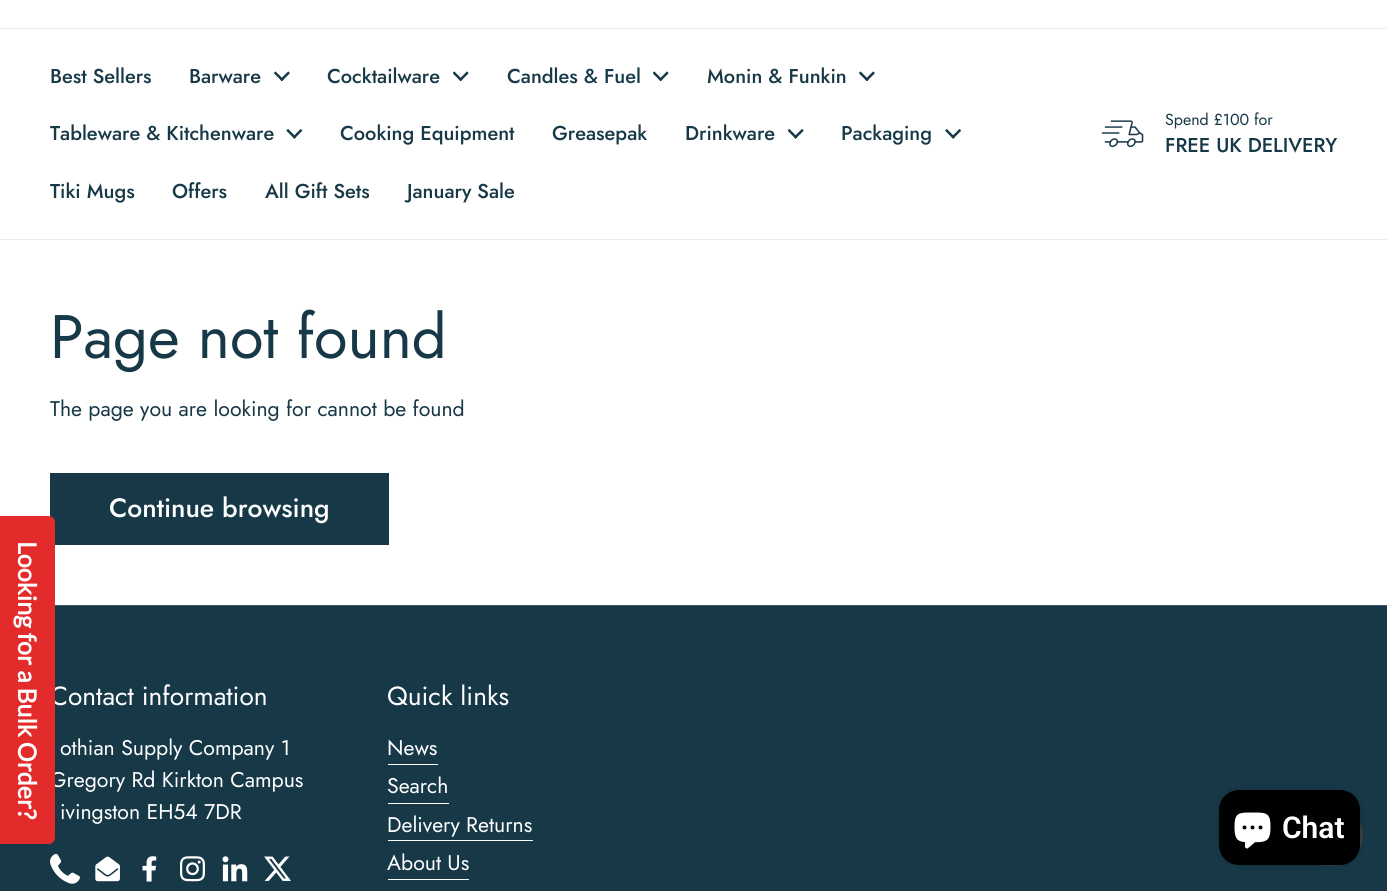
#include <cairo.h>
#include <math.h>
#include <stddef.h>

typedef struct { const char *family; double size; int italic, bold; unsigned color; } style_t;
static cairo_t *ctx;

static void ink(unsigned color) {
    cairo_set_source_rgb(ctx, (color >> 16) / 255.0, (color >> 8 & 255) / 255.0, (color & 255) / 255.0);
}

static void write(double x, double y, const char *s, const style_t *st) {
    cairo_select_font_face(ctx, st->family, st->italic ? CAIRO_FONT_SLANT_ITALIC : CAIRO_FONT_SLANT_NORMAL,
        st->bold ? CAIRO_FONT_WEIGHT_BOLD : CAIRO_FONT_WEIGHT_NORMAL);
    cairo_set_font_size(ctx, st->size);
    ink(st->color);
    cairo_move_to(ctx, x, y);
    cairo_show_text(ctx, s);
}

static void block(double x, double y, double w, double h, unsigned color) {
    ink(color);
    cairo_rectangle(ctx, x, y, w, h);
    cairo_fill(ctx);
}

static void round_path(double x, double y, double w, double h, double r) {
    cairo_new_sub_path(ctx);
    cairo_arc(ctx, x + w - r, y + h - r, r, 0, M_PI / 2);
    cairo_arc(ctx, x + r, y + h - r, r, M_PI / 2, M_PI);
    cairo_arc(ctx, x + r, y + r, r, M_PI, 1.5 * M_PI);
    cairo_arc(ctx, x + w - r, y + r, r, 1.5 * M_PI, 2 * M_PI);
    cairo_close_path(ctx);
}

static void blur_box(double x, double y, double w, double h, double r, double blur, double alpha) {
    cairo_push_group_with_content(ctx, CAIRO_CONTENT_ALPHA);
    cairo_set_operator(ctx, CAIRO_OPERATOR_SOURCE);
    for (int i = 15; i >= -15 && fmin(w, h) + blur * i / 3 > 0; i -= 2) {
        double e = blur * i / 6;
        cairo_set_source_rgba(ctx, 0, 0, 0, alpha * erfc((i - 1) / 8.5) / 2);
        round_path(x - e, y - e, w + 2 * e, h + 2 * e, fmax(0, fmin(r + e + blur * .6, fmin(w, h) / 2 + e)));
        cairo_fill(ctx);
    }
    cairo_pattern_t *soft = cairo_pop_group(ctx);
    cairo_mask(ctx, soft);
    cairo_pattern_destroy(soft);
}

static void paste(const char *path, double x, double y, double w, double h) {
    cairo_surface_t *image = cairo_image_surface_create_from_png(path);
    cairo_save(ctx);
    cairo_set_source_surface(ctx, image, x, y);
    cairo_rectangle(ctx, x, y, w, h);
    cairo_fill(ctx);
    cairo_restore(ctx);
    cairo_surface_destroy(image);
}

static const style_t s1 = {"Jost Medium", 20, 0, 0, 0x163847};
static const style_t s2 = {"Jost", 16, 0, 0, 0x163847};
static const style_t s3 = {"Jost", 61.25, 0, 0, 0x163847};
static const style_t s4 = {"Jost", 21.25, 0, 0, 0x163847};
static const style_t s5 = {"Jost Medium", 26.5, 0, 0, 0xffffff};
static const style_t s6 = {"Jost", 26.25, 0, 0, 0xffffff};
static const style_t s7 = {"Jost", 21.25, 0, 0, 0xffffff};
static const style_t s8 = {"Lato", 25, 0, 1, 0xffffff};
static const style_t s9 = {"Roboto SemiBold", 30, 0, 0, 0xffffff};

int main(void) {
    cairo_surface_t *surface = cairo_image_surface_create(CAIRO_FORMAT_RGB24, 1387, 891);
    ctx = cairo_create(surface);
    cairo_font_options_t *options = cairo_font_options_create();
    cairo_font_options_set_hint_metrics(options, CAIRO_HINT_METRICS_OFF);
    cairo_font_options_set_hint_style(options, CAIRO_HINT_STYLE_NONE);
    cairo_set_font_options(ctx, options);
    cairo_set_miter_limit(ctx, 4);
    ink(0xffffff);
    cairo_paint(ctx);
    block(0, 28, 1387, 1, 0xe8ebed);
    block(0, 239, 1387, 1, 0xe8ebed);
    write(50, 83, "Best Sellers", &s1);
    write(189, 83, "Barware", &s1);
    paste("pic1.png", 274, 71, 16, 10);
    write(327, 83, "Cocktailware", &s1);
    paste("pic2.png", 453, 71, 16, 10);
    write(507, 83, "Candles & Fuel", &s1);
    paste("pic2.png", 653, 71, 16, 10);
    write(707, 83, "Monin & Funkin", &s1);
    paste("pic1.png", 859, 71, 16, 10);
    write(50, 140, "Tableware & Kitchenware", &s1);
    paste("pic3.png", 286, 129, 17, 10);
    write(340, 140, "Cooking Equipment", &s1);
    write(552, 140, "Greasepak", &s1);
    write(685, 140, "Drinkware", &s1);
    paste("pic4.png", 788, 129, 16, 10);
    write(841, 140, "Packaging", &s1);
    paste("pic5.png", 945, 129, 16, 10);
    write(50, 198, "Tiki Mugs", &s1);
    write(172, 198, "Offers", &s1);
    write(265, 198, "All Gift Sets", &s1);
    write(407, 198, "January Sale", &s1);
    paste("pic6.png", 1101, 120, 43, 28);
    write(1165, 125, "Spend £100 for", &s2);
    write(1165, 152, "FREE UK DELIVERY", &s1);
    write(50, 358, "Page not found", &s3);
    write(50, 416, "The page you are looking for cannot be found", &s4);
    block(50, 473, 339, 72, 0x163847);
    write(109, 517, "Continue browsing", &s5);
    block(0, 606, 1387, 285, 0x163847);
    write(50, 705, "Contact information", &s6);
    write(50, 787, "Gregory Rd Kirkton Campus", &s7);
    ink(0xe42b2b);
    cairo_new_path(ctx);
    cairo_move_to(ctx, 55, 522);
    cairo_line_to(ctx, 55, 838);
    cairo_curve_to(ctx, 55, 841, 52, 844, 49, 844);
    cairo_line_to(ctx, 0, 844);
    cairo_line_to(ctx, 0, 516);
    cairo_line_to(ctx, 49, 516);
    cairo_curve_to(ctx, 52, 516, 55, 519, 55, 522);
    cairo_close_path(ctx);
    cairo_fill(ctx);
    cairo_save(ctx);
    cairo_translate(ctx, 18, 541);
    cairo_rotate(ctx, 90 * M_PI / 180);
    write(0, 0, "Looking for a Bulk Order?", &s8);
    cairo_restore(ctx);
    ink(0x3e3e3e);
    round_path(1300, 804, 63, 62, 31);
    cairo_fill(ctx);
    block(55, 605, 1332, 1, 0x395663);
    write(60, 755, "othian Supply Company 1", &s7);
    write(60, 819, "ivingston EH54 7DR", &s7);
    paste("pic7.png", 50, 854, 30, 30);
    paste("pic8.png", 95, 856, 25, 26);
    paste("pic9.png", 142, 856, 15, 26);
    paste("pic10.png", 180, 856, 25, 26);
    paste("pic11.png", 222, 856, 26, 26);
    paste("pic12.png", 264, 856, 27, 25);
    write(387, 705, "Quick links", &s6);
    write(387, 755, "News", &s7);
    block(388, 764, 50, 1, 0xffffff);
    write(387, 793, "Search", &s7);
    block(388, 803, 61, 1, 0xffffff);
    write(387, 832, "Delivery Returns", &s7);
    block(388, 840, 145, 1, 0xffffff);
    write(387, 870, "About Us", &s7);
    block(388, 879, 81, 1, 0xffffff);
    ink(0x000000);
    blur_box(1219, 790, 141, 75, 20, 3, 0.15);
    ink(0x000000);
    round_path(1219, 790, 141, 75, 20);
    cairo_fill(ctx);
    paste("pic13.png", 1234, 812, 37, 37);
    write(1282, 838, "Chat", &s9);
    cairo_surface_write_to_png(surface, "screenshot.png");
    cairo_font_options_destroy(options);
    cairo_destroy(ctx);
    cairo_surface_destroy(surface);
    return 0;
}
